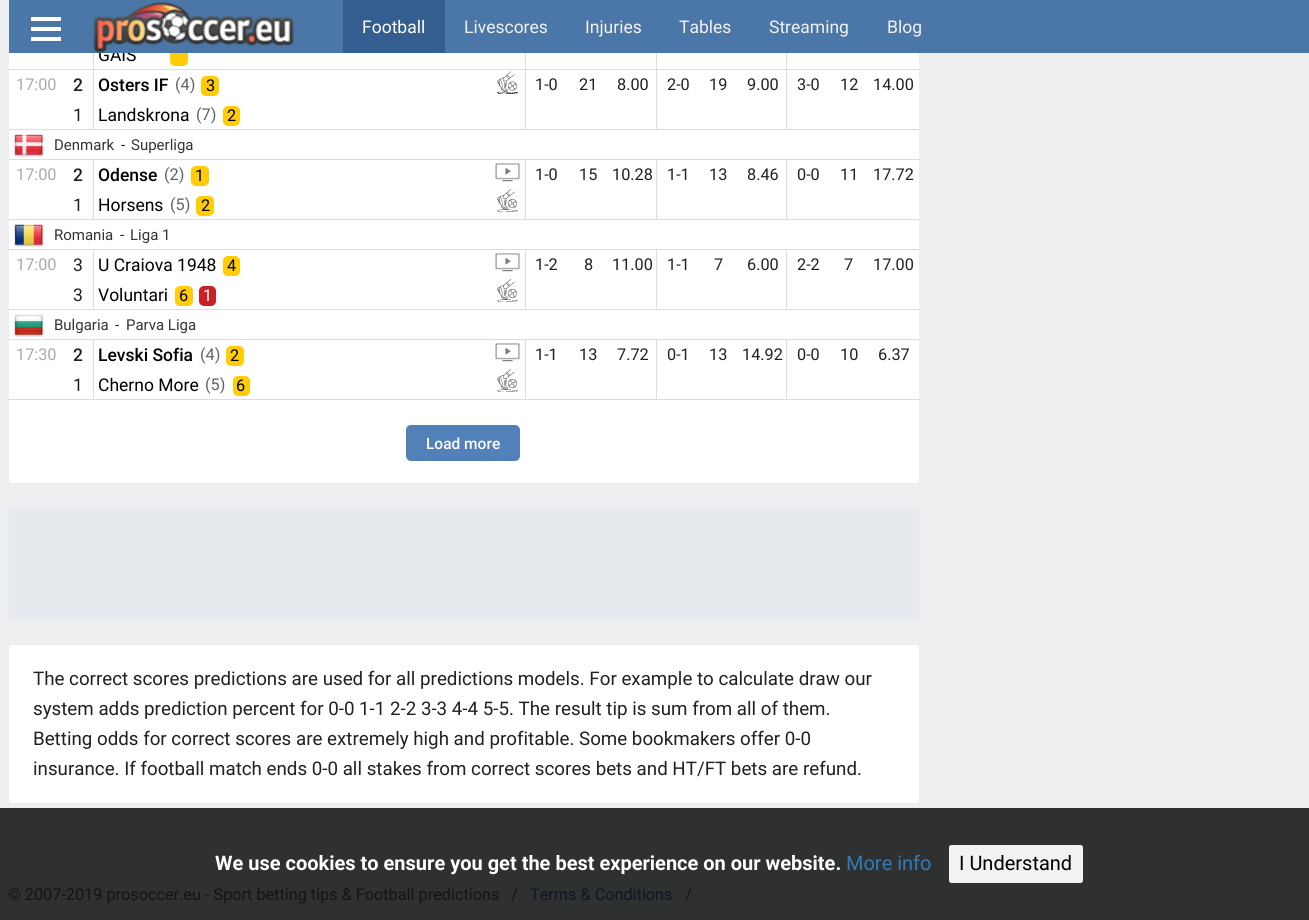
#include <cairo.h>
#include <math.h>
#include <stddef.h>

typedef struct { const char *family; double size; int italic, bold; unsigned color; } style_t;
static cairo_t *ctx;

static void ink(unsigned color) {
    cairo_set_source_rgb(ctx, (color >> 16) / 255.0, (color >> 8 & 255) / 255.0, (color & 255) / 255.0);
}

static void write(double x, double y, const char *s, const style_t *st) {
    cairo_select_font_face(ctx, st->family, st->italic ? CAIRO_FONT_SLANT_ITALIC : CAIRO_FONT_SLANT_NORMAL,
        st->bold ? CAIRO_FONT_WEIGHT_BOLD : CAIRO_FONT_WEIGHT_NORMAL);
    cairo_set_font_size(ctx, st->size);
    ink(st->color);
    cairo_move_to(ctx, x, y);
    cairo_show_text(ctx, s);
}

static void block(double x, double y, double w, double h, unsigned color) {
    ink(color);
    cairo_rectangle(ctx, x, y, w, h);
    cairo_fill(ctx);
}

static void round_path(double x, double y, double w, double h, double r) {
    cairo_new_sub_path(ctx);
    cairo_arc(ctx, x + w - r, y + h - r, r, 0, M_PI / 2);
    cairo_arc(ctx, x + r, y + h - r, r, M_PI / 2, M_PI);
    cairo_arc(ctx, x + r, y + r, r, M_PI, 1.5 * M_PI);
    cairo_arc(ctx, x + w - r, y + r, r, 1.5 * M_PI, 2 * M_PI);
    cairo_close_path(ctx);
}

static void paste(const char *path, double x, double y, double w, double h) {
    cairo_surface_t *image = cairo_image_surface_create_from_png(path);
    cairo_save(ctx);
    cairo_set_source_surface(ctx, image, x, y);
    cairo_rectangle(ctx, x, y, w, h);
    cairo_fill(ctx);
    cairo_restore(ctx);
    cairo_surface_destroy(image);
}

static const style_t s1 = {"Roboto", 17.5, 0, 0, 0x000000};
static const style_t s2 = {"Roboto", 17.5, 0, 0, 0xffffff};
static const style_t s3 = {"Roboto", 17.5, 0, 0, 0xf2f2f2};
static const style_t s4 = {"Roboto", 16.25, 0, 0, 0xaaaaaa};
static const style_t s5 = {"Roboto Medium", 17.5, 0, 0, 0x212121};
static const style_t s6 = {"Roboto", 17.5, 0, 0, 0x212121};
static const style_t s7 = {"Roboto Medium", 17.5, 0, 0, 0x000000};
static const style_t s8 = {"Roboto", 16.25, 0, 0, 0x5f6368};
static const style_t s9 = {"Roboto", 16.25, 0, 0, 0x000000};
static const style_t s10 = {"Roboto", 16.25, 0, 0, 0x212121};
static const style_t s11 = {"Roboto", 15, 0, 0, 0x333333};
static const style_t s12 = {"Roboto", 15, 0, 0, 0x212121};
static const style_t s13 = {"Roboto", 16.25, 0, 0, 0xffffff};
static const style_t s14 = {"Roboto Medium", 15.5, 0, 0, 0xffffff};
static const style_t s15 = {"Roboto", 18.75, 0, 0, 0x212121};
static const style_t s16 = {"Roboto", 20, 0, 1, 0xffffff};
static const style_t s17 = {"Roboto", 20, 0, 0, 0x337ab7};
static const style_t s18 = {"Roboto", 20, 0, 0, 0x000000};
static const style_t s19 = {"Roboto", 16.25, 0, 0, 0x121315};
static const style_t s20 = {"Roboto", 16.25, 0, 0, 0x0a1825};

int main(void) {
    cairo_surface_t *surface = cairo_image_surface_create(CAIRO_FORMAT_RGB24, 1309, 920);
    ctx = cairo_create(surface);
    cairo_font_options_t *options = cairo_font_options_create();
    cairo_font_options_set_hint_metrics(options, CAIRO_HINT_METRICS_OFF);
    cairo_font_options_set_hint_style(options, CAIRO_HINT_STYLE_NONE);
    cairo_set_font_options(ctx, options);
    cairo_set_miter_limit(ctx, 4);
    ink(0xedeef0);
    cairo_paint(ctx);
    block(0, 808, 1309, 112, 0x2f3030);
    block(9, 53, 910, 430, 0xffffff);
    write(98, 61, "GAIS", &s1);
    ink(0xffcc05);
    round_path(170, 46, 18, 20, 5);
    cairo_fill(ctx);
    block(9, 0, 1300, 53, 0x4a76a8);
    block(31, 17, 30, 4, 0xffffff);
    block(31, 27, 30, 4, 0xffffff);
    block(31, 37, 30, 4, 0xffffff);
    paste("pic1.png", 93, 2, 201, 51);
    block(343, 0, 102, 53, 0x335e8f);
    write(362, 33, "Football", &s2);
    write(464, 33, "Livescores", &s3);
    write(585, 33, "Injuries", &s3);
    write(679, 33, "Tables", &s3);
    write(769, 33, "Streaming", &s3);
    write(887, 33, "Blog", &s3);
    block(9, 69, 910, 1, 0xdddddd);
    block(93, 53, 1, 16, 0xdddddd);
    block(525, 53, 1, 16, 0xdddddd);
    block(656, 53, 1, 16, 0xdddddd);
    block(786, 53, 1, 16, 0xdddddd);
    block(9, 129, 910, 1, 0xdddddd);
    write(16, 90, "17:00", &s4);
    block(93, 70, 1, 59, 0xdddddd);
    write(73, 91, "2", &s5);
    write(73, 121, "1", &s6);
    write(98, 91, "Osters IF", &s7);
    write(175, 90, "(4)", &s8);
    ink(0xffcc05);
    round_path(201, 76, 18, 20, 5);
    cairo_fill(ctx);
    write(206, 91, "3", &s9);
    write(98, 121, "Landskrona", &s1);
    write(196, 120, "(7)", &s8);
    ink(0xffcc05);
    round_path(223, 106, 17, 20, 5);
    cairo_fill(ctx);
    write(227, 121, "2", &s9);
    block(525, 70, 1, 59, 0xdddddd);
    paste("pic2.png", 497, 71, 21, 23);
    write(535, 90, "1-0", &s10);
    write(579, 90, "21", &s10);
    block(656, 70, 1, 59, 0xdddddd);
    write(617, 90, "8.00", &s10);
    write(667, 90, "2-0", &s10);
    write(709, 90, "19", &s10);
    block(786, 70, 1, 59, 0xdddddd);
    write(747, 90, "9.00", &s10);
    write(797, 90, "3-0", &s10);
    write(840, 90, "12", &s10);
    write(873, 90, "14.00", &s10);
    block(9, 159, 910, 1, 0xdddddd);
    paste("pic3.png", 14, 134, 30, 23);
    write(54, 150, "Denmark", &s11);
    write(121, 150, "-", &s12);
    write(131, 150, "Superliga", &s11);
    block(9, 219, 910, 1, 0xdddddd);
    write(16, 180, "17:00", &s4);
    block(93, 160, 1, 59, 0xdddddd);
    write(73, 181, "2", &s5);
    write(73, 211, "1", &s6);
    write(98, 181, "Odense", &s7);
    write(164, 180, "(2)", &s8);
    ink(0xffcc05);
    round_path(191, 166, 18, 20, 5);
    cairo_fill(ctx);
    write(195, 181, "1", &s9);
    write(98, 211, "Horsens", &s1);
    write(170, 210, "(5)", &s8);
    ink(0xffcc05);
    round_path(196, 196, 18, 20, 5);
    cairo_fill(ctx);
    write(201, 211, "2", &s9);
    block(525, 160, 1, 59, 0xdddddd);
    paste("pic4.png", 495, 163, 25, 19);
    paste("pic5.png", 497, 189, 21, 23);
    write(535, 180, "1-0", &s10);
    write(579, 180, "15", &s10);
    block(656, 160, 1, 59, 0xdddddd);
    write(612, 180, "10.28", &s10);
    write(667, 180, "1-1", &s10);
    write(709, 180, "13", &s10);
    block(786, 160, 1, 59, 0xdddddd);
    write(747, 180, "8.46", &s10);
    write(797, 180, "0-0", &s10);
    write(840, 180, "11", &s10);
    write(873, 180, "17.72", &s10);
    block(9, 249, 910, 1, 0xdddddd);
    paste("pic6.png", 14, 224, 30, 23);
    write(54, 240, "Romania", &s11);
    write(120, 240, "-", &s12);
    write(130, 240, "Liga 1", &s11);
    block(9, 309, 910, 1, 0xdddddd);
    write(16, 270, "17:00", &s4);
    block(93, 250, 1, 59, 0xdddddd);
    write(73, 271, "3", &s6);
    write(73, 301, "3", &s6);
    write(98, 271, "U Craiova 1948", &s1);
    ink(0xffcc05);
    round_path(223, 256, 17, 20, 5);
    cairo_fill(ctx);
    write(227, 271, "4", &s9);
    write(98, 301, "Voluntari", &s1);
    ink(0xffcc05);
    round_path(175, 286, 18, 20, 5);
    cairo_fill(ctx);
    write(179, 301, "6", &s9);
    ink(0xca2027);
    round_path(199, 286, 17, 20, 5);
    cairo_fill(ctx);
    write(203, 301, "1", &s13);
    block(525, 250, 1, 59, 0xdddddd);
    paste("pic4.png", 495, 253, 25, 19);
    paste("pic5.png", 497, 279, 21, 23);
    write(535, 270, "1-2", &s10);
    write(584, 270, "8", &s10);
    block(656, 250, 1, 59, 0xdddddd);
    write(612, 270, "11.00", &s10);
    write(667, 270, "1-1", &s10);
    write(714, 270, "7", &s10);
    block(786, 250, 1, 59, 0xdddddd);
    write(747, 270, "6.00", &s10);
    write(797, 270, "2-2", &s10);
    write(844, 270, "7", &s10);
    write(873, 270, "17.00", &s10);
    block(9, 339, 910, 1, 0xdddddd);
    paste("pic7.png", 14, 314, 30, 23);
    write(54, 330, "Bulgaria", &s11);
    write(115, 330, "-", &s12);
    write(126, 330, "Parva Liga", &s11);
    block(9, 399, 910, 1, 0xdddddd);
    write(16, 360, "17:30", &s4);
    block(93, 340, 1, 59, 0xdddddd);
    write(73, 361, "2", &s5);
    write(73, 391, "1", &s6);
    write(98, 361, "Levski Sofia", &s7);
    write(200, 360, "(4)", &s8);
    ink(0xffcc05);
    round_path(226, 346, 18, 20, 5);
    cairo_fill(ctx);
    write(230, 361, "2", &s9);
    write(98, 391, "Cherno More", &s1);
    write(205, 390, "(5)", &s8);
    ink(0xffcc05);
    round_path(233, 376, 17, 20, 5);
    cairo_fill(ctx);
    write(236, 391, "6", &s9);
    block(525, 340, 1, 59, 0xdddddd);
    paste("pic4.png", 495, 343, 25, 19);
    paste("pic5.png", 497, 369, 21, 23);
    write(535, 360, "1-1", &s10);
    write(579, 360, "13", &s10);
    block(656, 340, 1, 59, 0xdddddd);
    write(617, 360, "7.72", &s10);
    write(667, 360, "0-1", &s10);
    write(709, 360, "13", &s10);
    block(786, 340, 1, 59, 0xdddddd);
    write(742, 360, "14.92", &s10);
    write(797, 360, "0-0", &s10);
    write(840, 360, "10", &s10);
    write(878, 360, "6.37", &s10);
    ink(0x5181b8);
    round_path(406, 425, 114, 36, 5);
    cairo_fill(ctx);
    write(426, 449, "Load more", &s14);
    block(9, 508, 910, 112, 0xe6e9ee);
    block(9, 645, 910, 158, 0xffffff);
    write(33, 685, "The correct scores predictions are used for all predictions models. For example to calculate draw our", &s15);
    write(33, 715, "system adds prediction percent for 0-0 1-1 2-2 3-3 4-4 5-5. The result tip is sum from all of them.", &s15);
    write(33, 745, "Betting odds for correct scores are extremely high and profitable. Some bookmakers offer 0-0", &s15);
    write(33, 775, "insurance. If football match ends 0-0 all stakes from correct scores bets and HT/FT bets are refund.", &s15);
    write(215, 870, "We use cookies to ensure you get the best experience on our website.", &s16);
    write(846, 870, "More info", &s17);
    ink(0xf2f2f2);
    round_path(949, 845, 134, 38, 2.5);
    cairo_fill(ctx);
    write(959, 870, "I Understand", &s18);
    write(8, 900, "© 2007-2019 prosoccer.eu - Sport betting tips & Football predictions   /", &s19);
    write(530, 900, "Terms & Conditions", &s20);
    write(685, 900, "/", &s19);
    cairo_surface_write_to_png(surface, "screenshot.png");
    cairo_font_options_destroy(options);
    cairo_destroy(ctx);
    cairo_surface_destroy(surface);
    return 0;
}
